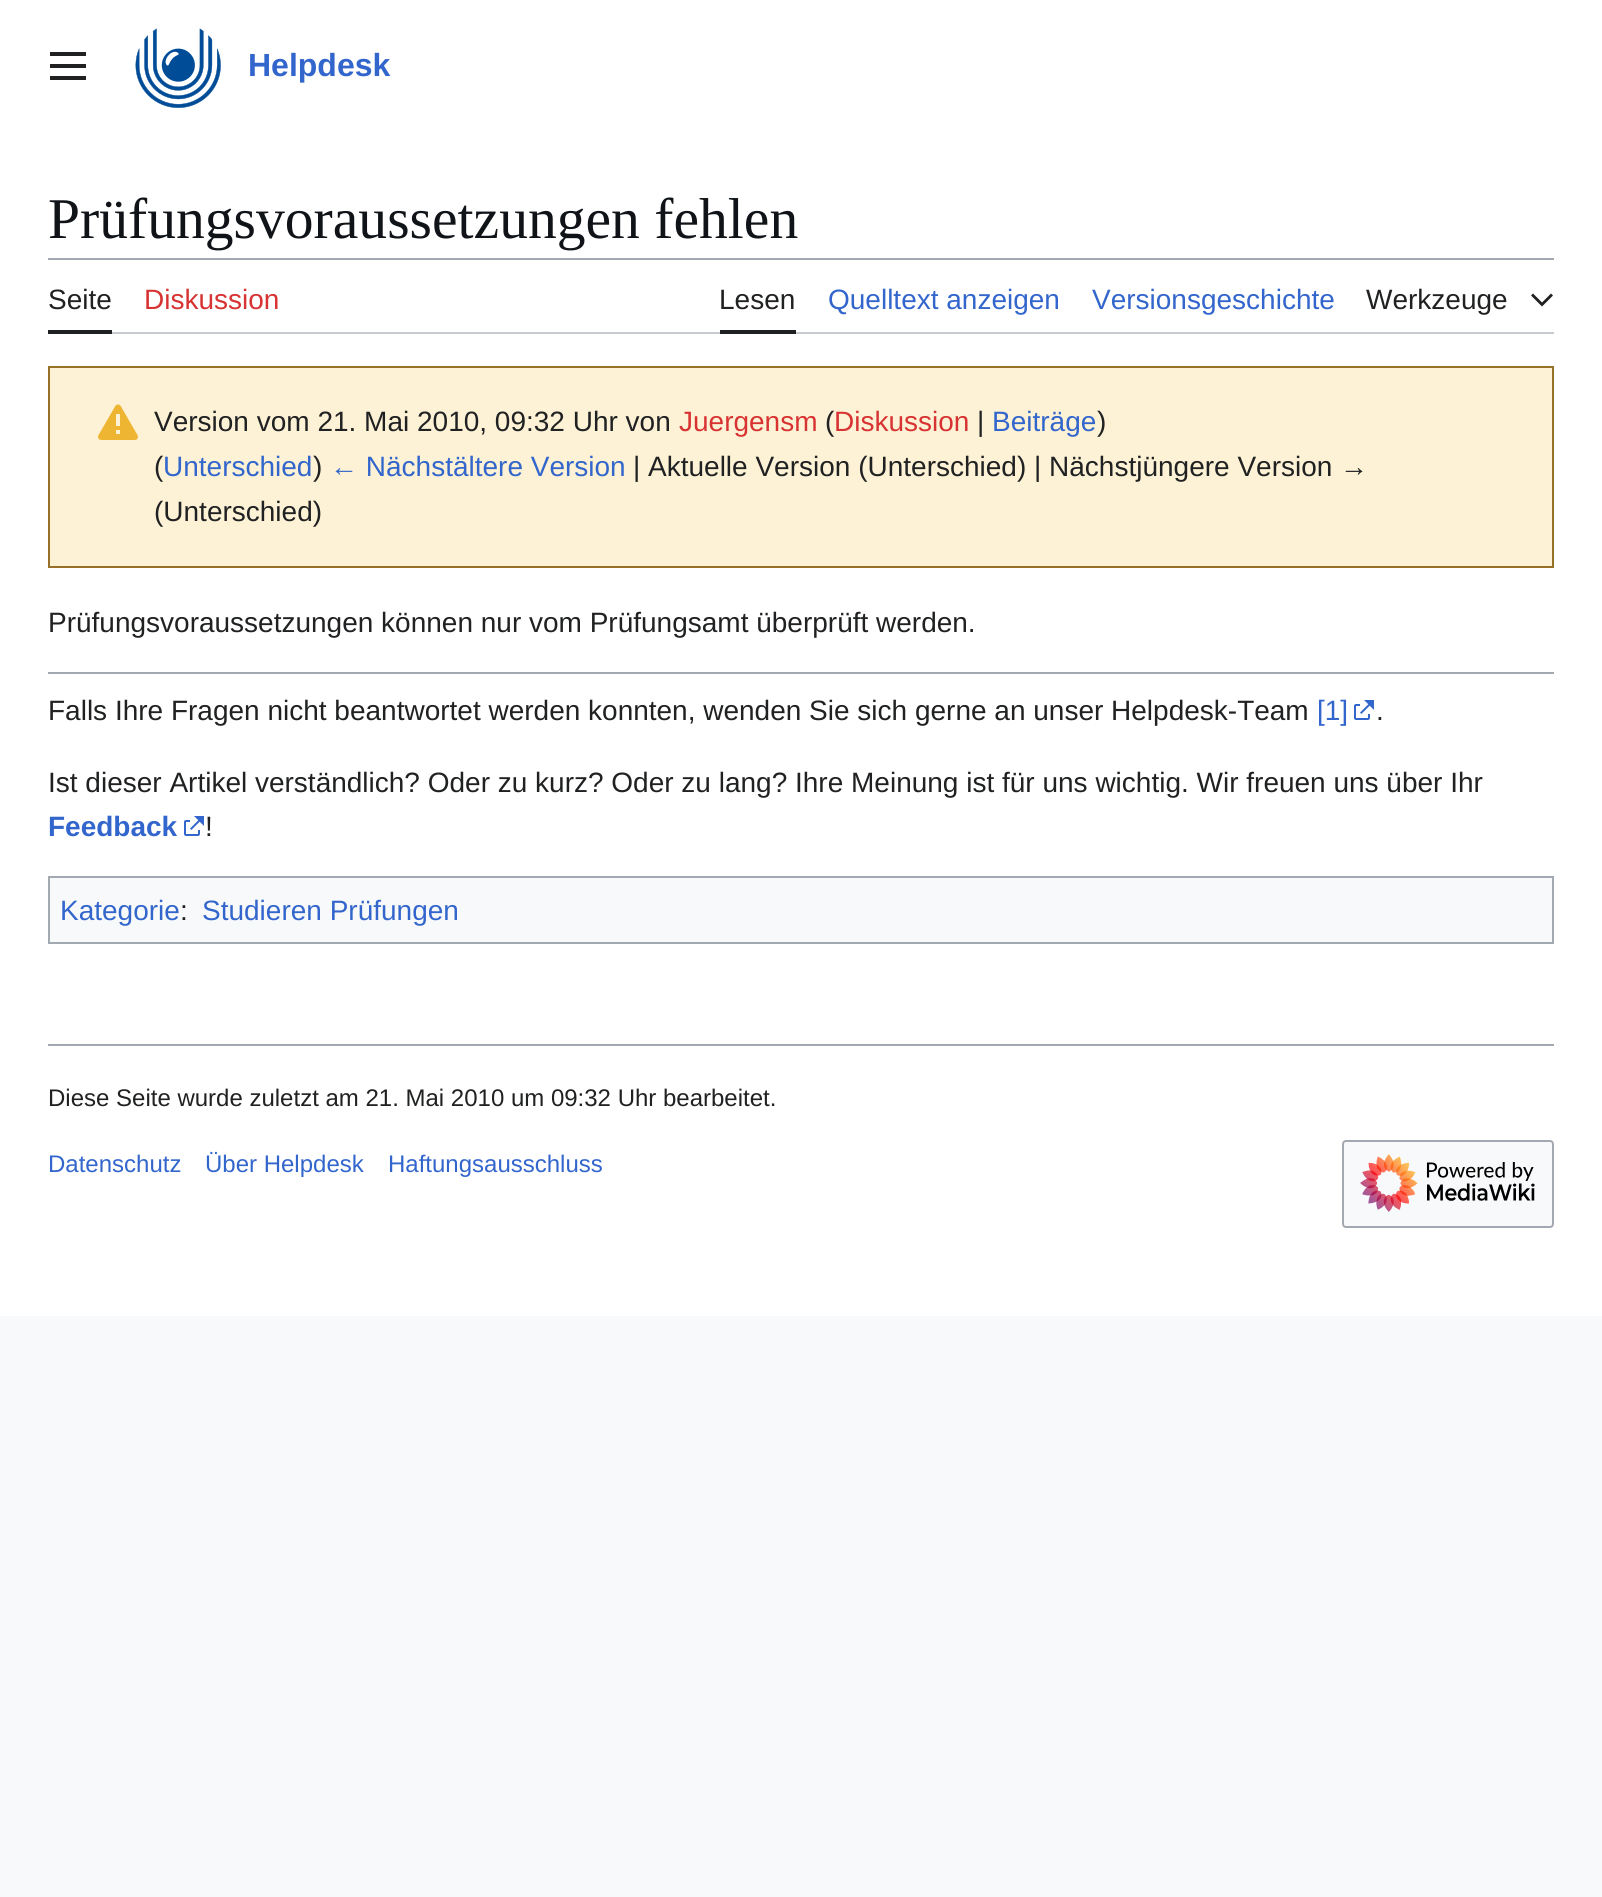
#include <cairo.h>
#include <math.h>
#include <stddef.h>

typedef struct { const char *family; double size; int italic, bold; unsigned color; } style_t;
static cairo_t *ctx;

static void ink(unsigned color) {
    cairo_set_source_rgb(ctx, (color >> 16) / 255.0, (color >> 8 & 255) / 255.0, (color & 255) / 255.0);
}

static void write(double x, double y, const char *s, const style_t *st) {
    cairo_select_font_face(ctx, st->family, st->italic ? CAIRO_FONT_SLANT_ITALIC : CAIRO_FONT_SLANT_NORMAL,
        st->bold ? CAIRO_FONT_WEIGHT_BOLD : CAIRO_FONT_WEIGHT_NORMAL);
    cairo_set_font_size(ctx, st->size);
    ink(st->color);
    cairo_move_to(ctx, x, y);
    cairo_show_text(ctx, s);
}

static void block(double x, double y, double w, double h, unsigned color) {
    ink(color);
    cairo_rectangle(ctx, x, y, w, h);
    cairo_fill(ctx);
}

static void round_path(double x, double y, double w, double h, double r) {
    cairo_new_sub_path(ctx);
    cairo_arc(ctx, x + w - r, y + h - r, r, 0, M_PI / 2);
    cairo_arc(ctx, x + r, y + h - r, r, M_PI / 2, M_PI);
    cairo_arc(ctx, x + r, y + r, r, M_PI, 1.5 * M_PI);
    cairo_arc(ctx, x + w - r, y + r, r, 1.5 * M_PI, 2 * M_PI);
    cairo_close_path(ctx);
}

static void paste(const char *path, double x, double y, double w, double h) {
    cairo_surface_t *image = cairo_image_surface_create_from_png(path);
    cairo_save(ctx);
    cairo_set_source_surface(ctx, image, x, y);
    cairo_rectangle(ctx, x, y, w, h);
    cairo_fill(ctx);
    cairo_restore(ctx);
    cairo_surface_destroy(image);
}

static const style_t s1 = {"Liberation Sans", 32, 0, 1, 0x3366cc};
static const style_t s2 = {"Liberation Serif", 57.6, 0, 0, 0x101418};
static const style_t s3 = {"Liberation Sans", 28, 0, 0, 0x202122};
static const style_t s4 = {"Liberation Sans", 28, 0, 0, 0xd73333};
static const style_t s5 = {"Liberation Sans", 28, 0, 0, 0x3366cc};
static const style_t s6 = {"Liberation Sans", 28, 0, 1, 0x3366cc};
static const style_t s7 = {"Liberation Sans", 24, 0, 0, 0x202122};
static const style_t s8 = {"Liberation Sans", 24, 0, 0, 0x3366cc};

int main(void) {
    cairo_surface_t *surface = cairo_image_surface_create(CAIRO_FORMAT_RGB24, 1602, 1897);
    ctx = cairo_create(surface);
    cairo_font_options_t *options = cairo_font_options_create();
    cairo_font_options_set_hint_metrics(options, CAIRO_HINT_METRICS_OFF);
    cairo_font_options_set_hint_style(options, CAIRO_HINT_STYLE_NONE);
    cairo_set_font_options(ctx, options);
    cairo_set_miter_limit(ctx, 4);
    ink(0xf8f9fa);
    cairo_paint(ctx);
    block(0, 0, 1602, 1316, 0xffffff);
    paste("pic1.png", 50, 52, 36, 28);
    paste("pic2.png", 135, 28, 86, 80);
    write(248, 76, "Helpdesk", &s1);
    write(48, 238, "Prüfungsvoraussetzungen fehlen", &s2);
    block(48, 258, 1506, 2, 0xa2a9b1);
    block(112, 332, 1442, 2, 0xc8ccd1);
    block(48, 330, 64, 4, 0x202122);
    write(48, 309, "Seite", &s3);
    write(144, 309, "Diskussion", &s4);
    block(720, 330, 76, 4, 0x202122);
    write(719, 309, "Lesen", &s3);
    write(828, 309, "Quelltext anzeigen", &s5);
    write(1092, 309, "Versionsgeschichte", &s5);
    write(1366, 309, "Werkzeuge", &s3);
    cairo_new_path(ctx);
    cairo_move_to(ctx, 1551, 293.5);
    cairo_line_to(ctx, 1542, 302.5);
    cairo_line_to(ctx, 1533, 293.5);
    cairo_line_to(ctx, 1531, 295.5);
    cairo_line_to(ctx, 1542, 306.5);
    cairo_line_to(ctx, 1553, 295.5);
    cairo_close_path(ctx);
    cairo_fill(ctx);
    ink(0xfdf2d5);
    cairo_rectangle(ctx, 49, 367, 1504, 200);
    cairo_fill_preserve(ctx);
    ink(0x987027);
    cairo_stroke(ctx);
    paste("pic3.png", 98, 404, 40, 36);
    write(154, 431, "Version vom 21. Mai 2010, 09:32 Uhr von", &s3);
    write(679, 431, "Juergensm", &s4);
    write(825, 431, "(", &s3);
    write(834, 431, "Diskussion", &s4);
    write(977, 431, "|", &s3);
    write(992, 431, "Beiträge", &s5);
    write(1097, 431, ")", &s3);
    write(154, 476, "(", &s3);
    write(163, 476, "Unterschied", &s5);
    write(313, 476, ")", &s3);
    write(330, 476, "← Nächstältere Version", &s5);
    write(633, 476, "| Aktuelle Version (Unterschied) | Nächstjüngere Version →", &s3);
    write(154, 521, "(Unterschied)", &s3);
    write(48, 632, "Prüfungsvoraussetzungen können nur vom Prüfungsamt überprüft werden.", &s3);
    block(48, 672, 1506, 2, 0xa2a9b1);
    write(48, 720, "Falls Ihre Fragen nicht beantwortet werden konnten, wenden Sie sich gerne an unser Helpdesk-Team", &s3);
    write(1317, 720, "[1]", &s5);
    paste("pic4.png", 1354, 700, 20, 20);
    write(1376, 720, ".", &s3);
    write(48, 792, "Ist dieser Artikel verständlich? Oder zu kurz? Oder zu lang? Ihre Meinung ist für uns wichtig. Wir freuen uns über Ihr", &s3);
    write(48, 836, "Feedback", &s6);
    paste("pic4.png", 184, 816, 20, 20);
    write(205, 836, "!", &s3);
    ink(0xf8f9fa);
    cairo_rectangle(ctx, 49, 877, 1504, 66);
    cairo_fill_preserve(ctx);
    ink(0xa2a9b1);
    cairo_stroke(ctx);
    write(60, 920, "Kategorie", &s5);
    write(180, 920, ":", &s3);
    write(202, 920, "Studieren Prüfungen", &s5);
    block(48, 1044, 1506, 2, 0xa2a9b1);
    write(48, 1106, "Diese Seite wurde zuletzt am 21. Mai 2010 um 09:32 Uhr bearbeitet.", &s7);
    write(48, 1172, "Datenschutz", &s8);
    write(205, 1172, "Über Helpdesk", &s8);
    write(388, 1172, "Haftungsausschluss", &s8);
    ink(0xf8f9fa);
    round_path(1343, 1141, 210, 86, 3);
    cairo_fill_preserve(ctx);
    ink(0xa2a9b1);
    cairo_stroke(ctx);
    paste("pic5.png", 1360, 1154, 175, 58);
    cairo_surface_write_to_png(surface, "screenshot.png");
    cairo_font_options_destroy(options);
    cairo_destroy(ctx);
    cairo_surface_destroy(surface);
    return 0;
}
